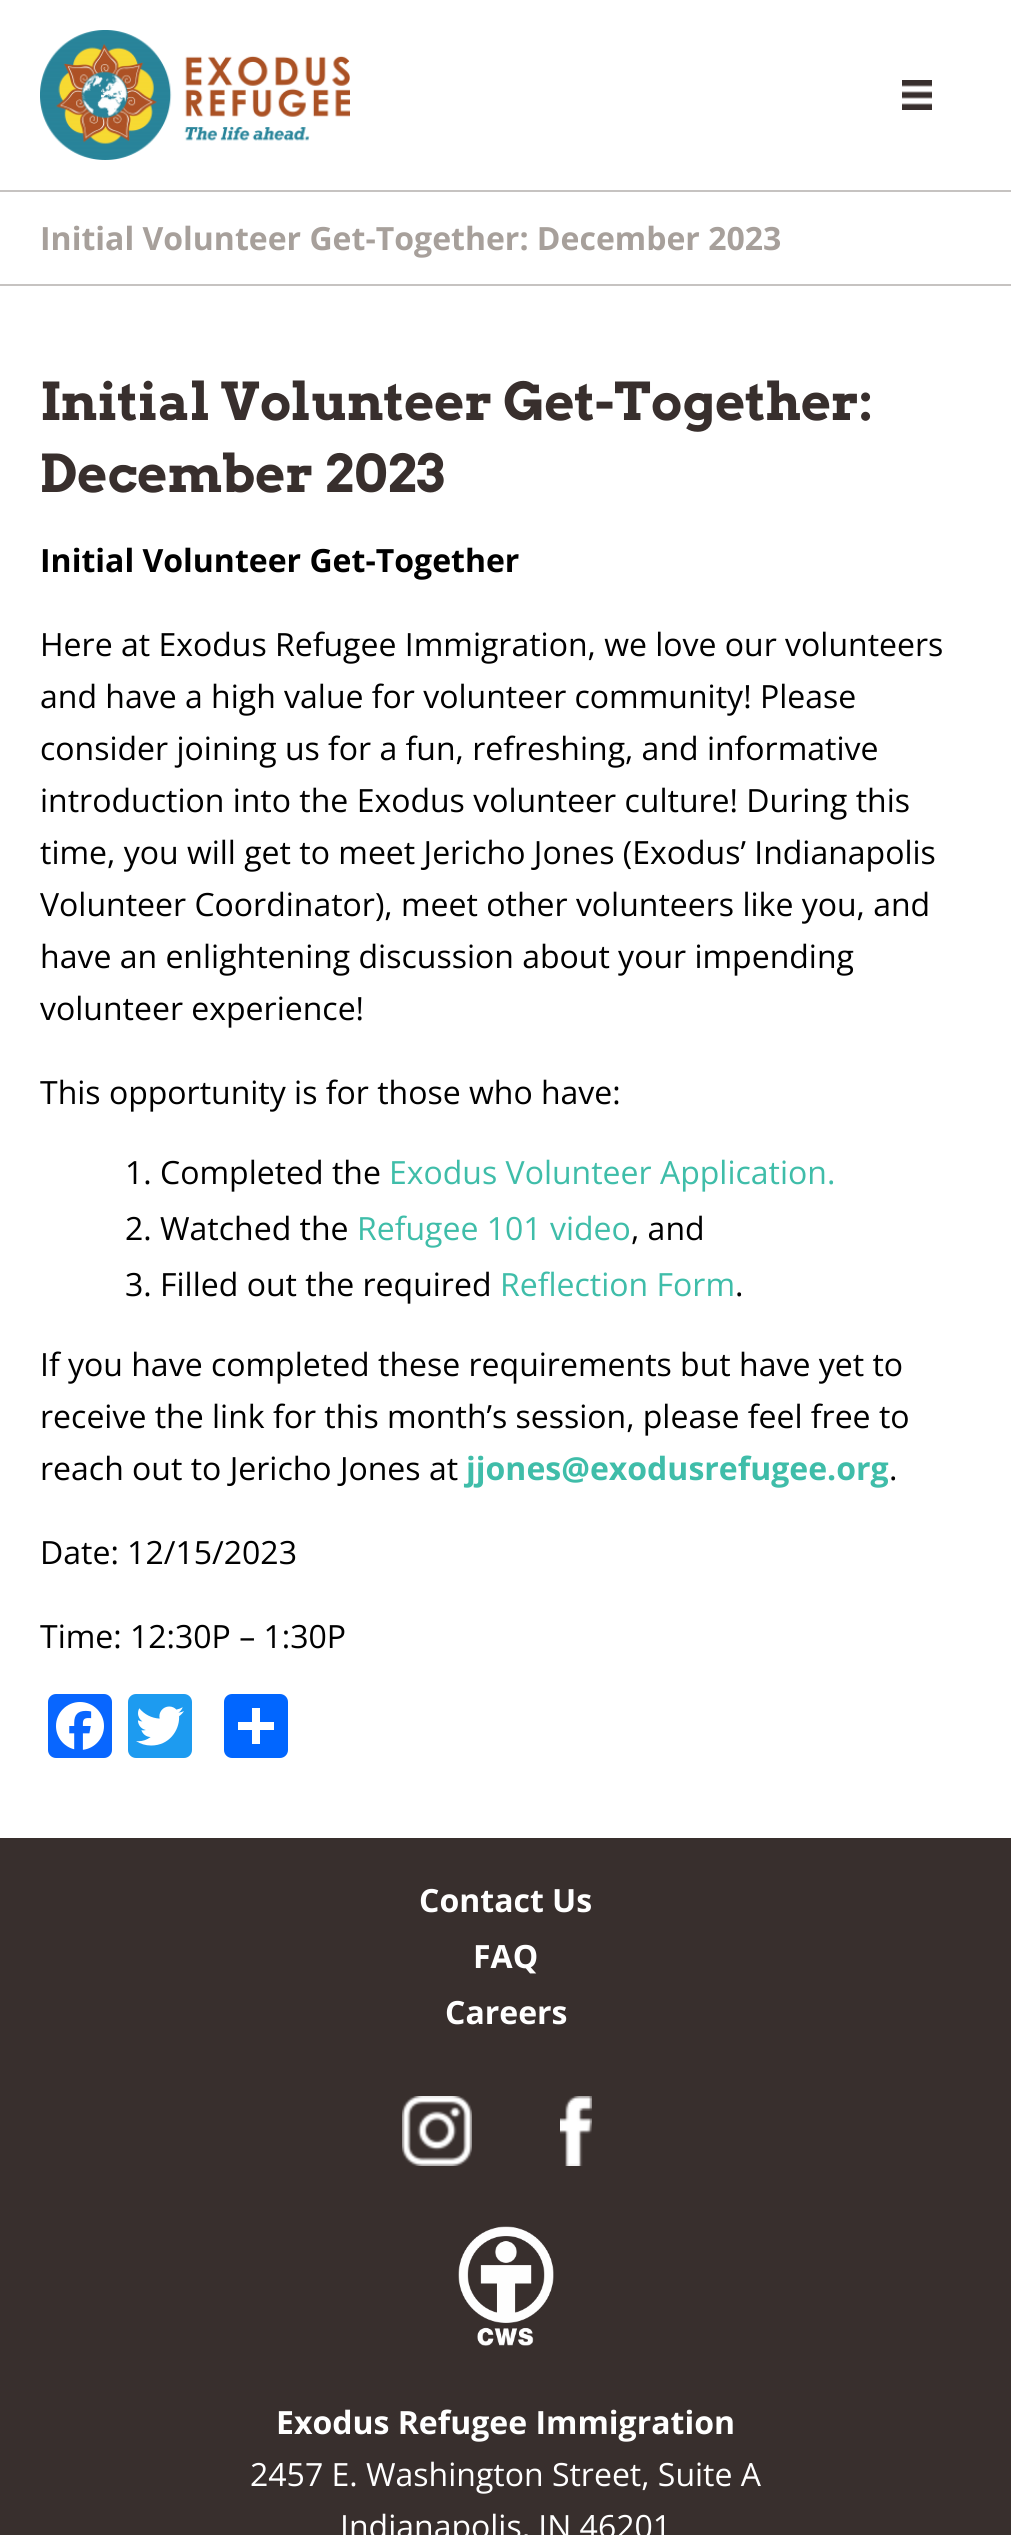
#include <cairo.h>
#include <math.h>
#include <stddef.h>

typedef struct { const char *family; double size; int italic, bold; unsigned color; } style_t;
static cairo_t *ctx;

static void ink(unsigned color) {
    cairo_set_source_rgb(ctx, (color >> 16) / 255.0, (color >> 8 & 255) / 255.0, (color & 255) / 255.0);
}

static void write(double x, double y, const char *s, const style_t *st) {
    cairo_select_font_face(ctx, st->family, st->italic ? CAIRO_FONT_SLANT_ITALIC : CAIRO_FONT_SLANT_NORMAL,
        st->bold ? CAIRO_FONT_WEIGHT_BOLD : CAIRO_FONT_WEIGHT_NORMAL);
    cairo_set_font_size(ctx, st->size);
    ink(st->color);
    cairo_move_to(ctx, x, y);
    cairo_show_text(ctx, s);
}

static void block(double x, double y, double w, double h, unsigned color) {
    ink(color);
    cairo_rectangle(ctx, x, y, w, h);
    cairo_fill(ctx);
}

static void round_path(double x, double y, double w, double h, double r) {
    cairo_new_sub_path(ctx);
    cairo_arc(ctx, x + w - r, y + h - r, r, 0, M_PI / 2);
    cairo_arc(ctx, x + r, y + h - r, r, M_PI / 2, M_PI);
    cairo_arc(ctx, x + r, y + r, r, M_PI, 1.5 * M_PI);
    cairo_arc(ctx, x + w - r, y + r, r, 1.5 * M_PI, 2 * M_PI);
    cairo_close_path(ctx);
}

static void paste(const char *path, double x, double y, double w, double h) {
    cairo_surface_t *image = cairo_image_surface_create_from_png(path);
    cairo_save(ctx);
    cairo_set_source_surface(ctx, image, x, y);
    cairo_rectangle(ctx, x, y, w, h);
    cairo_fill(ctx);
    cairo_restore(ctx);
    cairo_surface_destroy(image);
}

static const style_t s1 = {"Open Sans", 32, 0, 1, 0xa7a09b};
static const style_t s2 = {"Arvo", 52, 0, 1, 0x382f2d};
static const style_t s3 = {"Open Sans", 32, 0, 1, 0x000000};
static const style_t s4 = {"Open Sans", 32, 0, 0, 0x000000};
static const style_t s5 = {"Open Sans", 32, 0, 0, 0x3fbda9};
static const style_t s6 = {"Open Sans", 32, 0, 1, 0x3fbda9};
static const style_t s7 = {"Open Sans", 32, 0, 1, 0xffffff};
static const style_t s8 = {"Open Sans", 32, 0, 0, 0xffffff};

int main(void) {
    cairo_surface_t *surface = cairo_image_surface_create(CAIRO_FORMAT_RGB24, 1011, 2535);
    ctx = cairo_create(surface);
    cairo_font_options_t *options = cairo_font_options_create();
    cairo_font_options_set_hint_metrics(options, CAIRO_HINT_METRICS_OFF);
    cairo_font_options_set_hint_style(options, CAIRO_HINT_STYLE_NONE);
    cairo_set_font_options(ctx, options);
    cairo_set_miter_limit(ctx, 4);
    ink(0xffffff);
    cairo_paint(ctx);
    block(0, 190, 1011, 2, 0xc6c3c1);
    paste("pic1.png", 40, 30, 310, 130);
    paste("pic2.png", 902, 80, 30, 30);
    block(0, 284, 1011, 2, 0xc6c3c1);
    write(40, 250, "Initial Volunteer Get-Together: December 2023", &s1);
    write(40, 420, "Initial Volunteer Get-Together:", &s2);
    write(40, 492, "December 2023", &s2);
    write(40, 572, "Initial Volunteer Get-Together", &s3);
    write(40, 656, "Here at Exodus Refugee Immigration, we love our volunteers", &s4);
    write(40, 708, "and have a high value for volunteer community! Please", &s4);
    write(40, 760, "consider joining us for a fun, refreshing, and informative", &s4);
    write(40, 812, "introduction into the Exodus volunteer culture! During this", &s4);
    write(40, 864, "time, you will get to meet Jericho Jones (Exodus’ Indianapolis", &s4);
    write(40, 916, "Volunteer Coordinator), meet other volunteers like you, and", &s4);
    write(40, 968, "have an enlightening discussion about your impending", &s4);
    write(40, 1020, "volunteer experience!", &s4);
    write(40, 1104, "This opportunity is for those who have:", &s4);
    write(125, 1184, "1. Completed the", &s4);
    write(389, 1184, "Exodus Volunteer Application.", &s5);
    write(125, 1240, "2. Watched the", &s4);
    write(357, 1240, "Refugee 101 video", &s5);
    write(631, 1240, ", and", &s4);
    write(125, 1296, "3. Filled out the required", &s4);
    write(500, 1296, "Reflection Form", &s5);
    write(735, 1296, ".", &s4);
    write(40, 1376, "If you have completed these requirements but have yet to", &s4);
    write(40, 1428, "receive the link for this month’s session, please feel free to", &s4);
    write(40, 1480, "reach out to Jericho Jones at", &s4);
    write(466, 1480, "jjones@exodusrefugee.org", &s6);
    write(889, 1480, ".", &s4);
    write(40, 1564, "Date: 12/15/2023", &s4);
    write(40, 1648, "Time: 12:30P – 1:30P", &s4);
    ink(0x0866ff);
    round_path(48, 1694, 64, 64, 8);
    cairo_fill(ctx);
    paste("pic3.png", 56, 1702, 48, 48);
    ink(0x1d9bf0);
    round_path(128, 1694, 64, 64, 8);
    cairo_fill(ctx);
    paste("pic4.png", 136, 1706, 48, 40);
    ink(0x0166ff);
    round_path(224, 1694, 64, 64, 8);
    cairo_fill(ctx);
    block(252, 1708, 8, 36, 0xffffff);
    block(238, 1722, 36, 8, 0xffffff);
    block(0, 1838, 1011, 697, 0x382f2d);
    write(419, 1912, "Contact Us", &s7);
    write(473, 1968, "FAQ", &s7);
    write(445, 2024, "Careers", &s7);
    paste("pic5.png", 402, 2096, 70, 70);
    paste("pic6.png", 560, 2096, 32, 70);
    paste("pic7.png", 458, 2226, 96, 120);
    write(276, 2434, "Exodus Refugee Immigration", &s7);
    write(250, 2486, "2457 E. Washington Street, Suite A", &s8);
    write(340, 2538, "Indianapolis, IN 46201", &s8);
    cairo_surface_write_to_png(surface, "screenshot.png");
    cairo_font_options_destroy(options);
    cairo_destroy(ctx);
    cairo_surface_destroy(surface);
    return 0;
}
